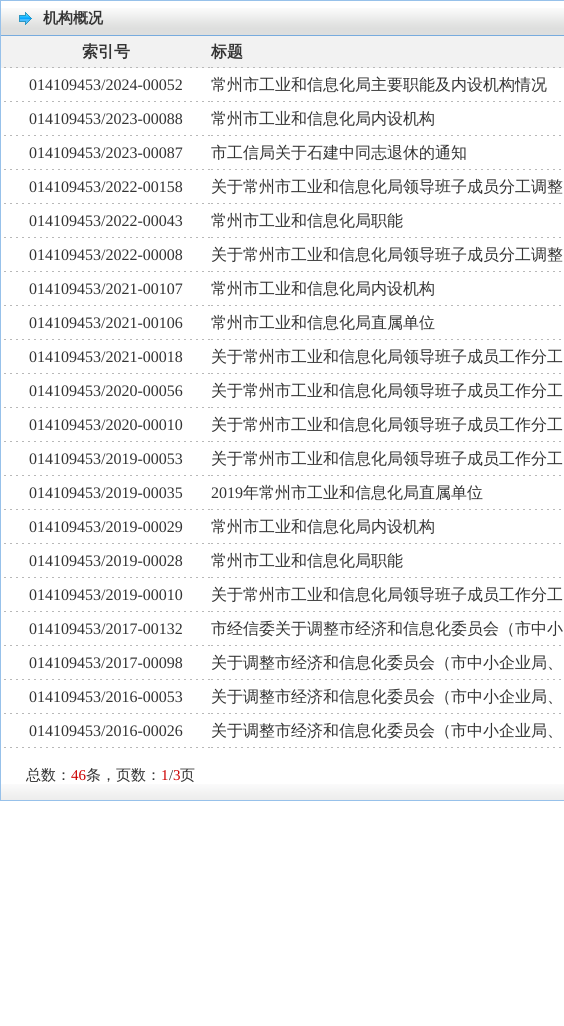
#include <cairo.h>
#include <math.h>
#include <stddef.h>

typedef struct { const char *family; double size; int italic, bold; unsigned color; } style_t;
static cairo_t *ctx;

static void ink(unsigned color) {
    cairo_set_source_rgb(ctx, (color >> 16) / 255.0, (color >> 8 & 255) / 255.0, (color & 255) / 255.0);
}

static void write(double x, double y, const char *s, const style_t *st) {
    cairo_select_font_face(ctx, st->family, st->italic ? CAIRO_FONT_SLANT_ITALIC : CAIRO_FONT_SLANT_NORMAL,
        st->bold ? CAIRO_FONT_WEIGHT_BOLD : CAIRO_FONT_WEIGHT_NORMAL);
    cairo_set_font_size(ctx, st->size);
    ink(st->color);
    cairo_move_to(ctx, x, y);
    cairo_show_text(ctx, s);
}

static void block(double x, double y, double w, double h, unsigned color) {
    ink(color);
    cairo_rectangle(ctx, x, y, w, h);
    cairo_fill(ctx);
}

static void paste(const char *path, double x, double y, double w, double h) {
    cairo_surface_t *image = cairo_image_surface_create_from_png(path);
    cairo_save(ctx);
    cairo_set_source_surface(ctx, image, x, y);
    cairo_rectangle(ctx, x, y, w, h);
    cairo_fill(ctx);
    cairo_restore(ctx);
    cairo_surface_destroy(image);
}

static const style_t s1 = {"WenQuanYi Zen Hei", 15, 0, 1, 0x333333};
static const style_t s2 = {"WenQuanYi Zen Hei", 16, 0, 1, 0x333333};
static const style_t s3 = {"Liberation Serif", 16, 0, 0, 0x333333};
static const style_t s4 = {"WenQuanYi Zen Hei Medium", 16, 0, 0, 0x333333};
static const style_t s5 = {"WenQuanYi Zen Hei Medium", 15, 0, 0, 0x333333};
static const style_t s6 = {"Liberation Serif", 15, 0, 0, 0xcc0000};
static const style_t s7 = {"Liberation Serif", 15, 0, 0, 0x333333};

int main(void) {
    cairo_surface_t *surface = cairo_image_surface_create(CAIRO_FORMAT_RGB24, 564, 1026);
    ctx = cairo_create(surface);
    cairo_font_options_t *options = cairo_font_options_create();
    cairo_font_options_set_hint_metrics(options, CAIRO_HINT_METRICS_OFF);
    cairo_font_options_set_hint_style(options, CAIRO_HINT_STYLE_NONE);
    cairo_set_font_options(ctx, options);
    cairo_set_miter_limit(ctx, 4);
    ink(0xffffff);
    cairo_paint(ctx);
    cairo_rectangle(ctx, 0.5, 0.5, 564, 800);
    ink(0x97c1ea);
    cairo_set_line_width(ctx, 1);
    cairo_stroke(ctx);
    paste("pic1.png", 1, 8, 563, 27);
    block(1, 35, 563, 1, 0x77abde);
    paste("pic2.png", 19, 12, 13, 13);
    write(43, 23, "机构概况", &s1);
    paste("pic3.png", 1, 784, 563, 16);
    block(1, 36, 563, 32, 0xf2f2f2);
    paste("pic4.png", 4, 67, 206, 1);
    write(82, 57, "索引号", &s2);
    paste("pic5.png", 211, 67, 350, 1);
    write(211, 57, "标题", &s2);
    paste("pic6.png", 4, 101, 206, 1);
    write(29, 90, "014109453/2024-00052", &s3);
    paste("pic7.png", 211, 101, 350, 1);
    write(211, 90, "常州市工业和信息化局主要职能及内设机构情况", &s4);
    paste("pic6.png", 4, 135, 206, 1);
    write(29, 124, "014109453/2023-00088", &s3);
    paste("pic7.png", 211, 135, 350, 1);
    write(211, 124, "常州市工业和信息化局内设机构", &s4);
    paste("pic6.png", 4, 169, 206, 1);
    write(29, 158, "014109453/2023-00087", &s3);
    paste("pic7.png", 211, 169, 350, 1);
    write(211, 158, "市工信局关于石建中同志退休的通知", &s4);
    paste("pic6.png", 4, 203, 206, 1);
    write(29, 192, "014109453/2022-00158", &s3);
    paste("pic7.png", 211, 203, 350, 1);
    write(211, 192, "关于常州市工业和信息化局领导班子成员分工调整", &s4);
    paste("pic6.png", 4, 237, 206, 1);
    write(29, 226, "014109453/2022-00043", &s3);
    paste("pic7.png", 211, 237, 350, 1);
    write(211, 226, "常州市工业和信息化局职能", &s4);
    paste("pic6.png", 4, 271, 206, 1);
    write(29, 260, "014109453/2022-00008", &s3);
    paste("pic7.png", 211, 271, 350, 1);
    write(211, 260, "关于常州市工业和信息化局领导班子成员分工调整", &s4);
    paste("pic6.png", 4, 305, 206, 1);
    write(29, 294, "014109453/2021-00107", &s3);
    paste("pic7.png", 211, 305, 350, 1);
    write(211, 294, "常州市工业和信息化局内设机构", &s4);
    paste("pic6.png", 4, 339, 206, 1);
    write(29, 328, "014109453/2021-00106", &s3);
    paste("pic7.png", 211, 339, 350, 1);
    write(211, 328, "常州市工业和信息化局直属单位", &s4);
    paste("pic6.png", 4, 373, 206, 1);
    write(29, 362, "014109453/2021-00018", &s3);
    paste("pic7.png", 211, 373, 350, 1);
    write(211, 362, "关于常州市工业和信息化局领导班子成员工作分工", &s4);
    paste("pic6.png", 4, 407, 206, 1);
    write(29, 396, "014109453/2020-00056", &s3);
    paste("pic7.png", 211, 407, 350, 1);
    write(211, 396, "关于常州市工业和信息化局领导班子成员工作分工", &s4);
    paste("pic6.png", 4, 441, 206, 1);
    write(29, 430, "014109453/2020-00010", &s3);
    paste("pic7.png", 211, 441, 350, 1);
    write(211, 430, "关于常州市工业和信息化局领导班子成员工作分工", &s4);
    paste("pic6.png", 4, 475, 206, 1);
    write(29, 464, "014109453/2019-00053", &s3);
    paste("pic7.png", 211, 475, 350, 1);
    write(211, 464, "关于常州市工业和信息化局领导班子成员工作分工", &s4);
    paste("pic6.png", 4, 509, 206, 1);
    write(29, 498, "014109453/2019-00035", &s3);
    paste("pic7.png", 211, 509, 350, 1);
    write(211, 498, "2019", &s3);
    write(243, 498, "年常州市工业和信息化局直属单位", &s4);
    paste("pic6.png", 4, 543, 206, 1);
    write(29, 532, "014109453/2019-00029", &s3);
    paste("pic7.png", 211, 543, 350, 1);
    write(211, 532, "常州市工业和信息化局内设机构", &s4);
    paste("pic6.png", 4, 577, 206, 1);
    write(29, 566, "014109453/2019-00028", &s3);
    paste("pic7.png", 211, 577, 350, 1);
    write(211, 566, "常州市工业和信息化局职能", &s4);
    paste("pic6.png", 4, 611, 206, 1);
    write(29, 600, "014109453/2019-00010", &s3);
    paste("pic7.png", 211, 611, 350, 1);
    write(211, 600, "关于常州市工业和信息化局领导班子成员工作分工", &s4);
    paste("pic6.png", 4, 645, 206, 1);
    write(29, 634, "014109453/2017-00132", &s3);
    paste("pic7.png", 211, 645, 350, 1);
    write(211, 634, "市经信委关于调整市经济和信息化委员会（市中小", &s4);
    paste("pic6.png", 4, 679, 206, 1);
    write(29, 668, "014109453/2017-00098", &s3);
    paste("pic7.png", 211, 679, 350, 1);
    write(211, 668, "关于调整市经济和信息化委员会（市中小企业局、", &s4);
    paste("pic6.png", 4, 713, 206, 1);
    write(29, 702, "014109453/2016-00053", &s3);
    paste("pic7.png", 211, 713, 350, 1);
    write(211, 702, "关于调整市经济和信息化委员会（市中小企业局、", &s4);
    paste("pic6.png", 4, 747, 206, 1);
    write(29, 736, "014109453/2016-00026", &s3);
    paste("pic7.png", 211, 747, 350, 1);
    write(211, 736, "关于调整市经济和信息化委员会（市中小企业局、", &s4);
    write(26, 780, "总数：", &s5);
    write(71, 780, "46", &s6);
    write(86, 780, "条，页数：", &s5);
    write(161, 780, "1", &s6);
    write(169, 780, "/", &s7);
    write(173, 780, "3", &s6);
    write(180, 780, "页", &s5);
    cairo_surface_write_to_png(surface, "screenshot.png");
    cairo_font_options_destroy(options);
    cairo_destroy(ctx);
    cairo_surface_destroy(surface);
    return 0;
}
